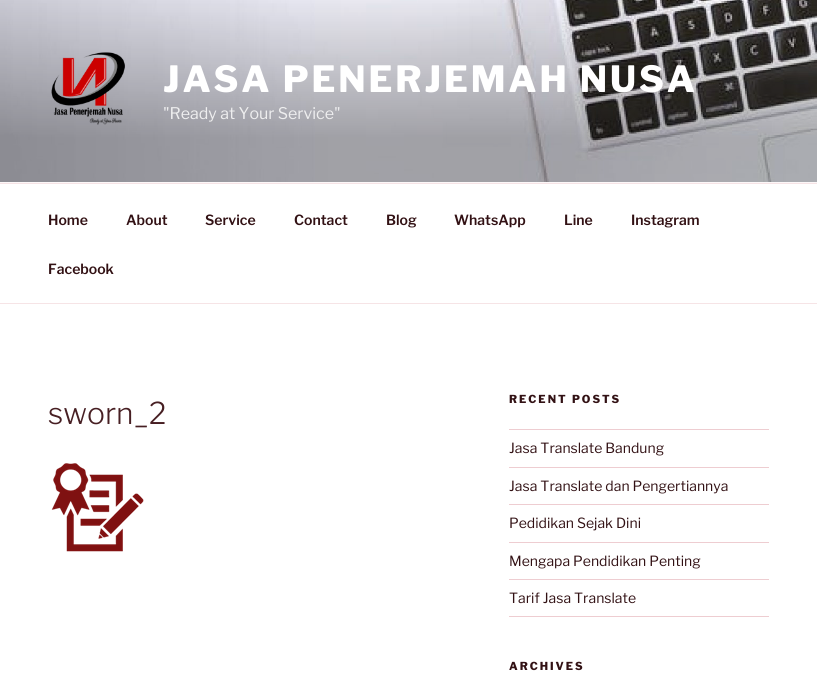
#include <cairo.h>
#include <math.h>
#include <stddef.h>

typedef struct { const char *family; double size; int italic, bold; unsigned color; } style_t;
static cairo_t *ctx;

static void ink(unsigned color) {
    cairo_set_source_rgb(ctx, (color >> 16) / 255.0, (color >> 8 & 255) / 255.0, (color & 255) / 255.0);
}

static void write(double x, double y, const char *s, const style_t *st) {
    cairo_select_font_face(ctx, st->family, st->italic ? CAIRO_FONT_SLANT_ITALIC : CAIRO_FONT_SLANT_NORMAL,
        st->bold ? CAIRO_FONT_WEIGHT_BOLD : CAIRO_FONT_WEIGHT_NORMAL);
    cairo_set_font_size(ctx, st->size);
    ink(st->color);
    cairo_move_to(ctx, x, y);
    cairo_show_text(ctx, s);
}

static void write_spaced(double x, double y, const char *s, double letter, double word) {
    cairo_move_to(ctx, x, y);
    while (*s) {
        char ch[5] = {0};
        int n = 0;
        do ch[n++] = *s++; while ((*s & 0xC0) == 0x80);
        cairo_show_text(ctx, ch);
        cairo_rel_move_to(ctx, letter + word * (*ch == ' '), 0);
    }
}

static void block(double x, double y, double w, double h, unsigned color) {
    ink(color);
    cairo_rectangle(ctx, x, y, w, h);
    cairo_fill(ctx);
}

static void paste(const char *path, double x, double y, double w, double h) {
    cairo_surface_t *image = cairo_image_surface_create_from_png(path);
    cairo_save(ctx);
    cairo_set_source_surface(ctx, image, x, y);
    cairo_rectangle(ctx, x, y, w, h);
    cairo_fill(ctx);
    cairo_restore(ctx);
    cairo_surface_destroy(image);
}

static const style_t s1 = {"Libre Franklin", 16, 0, 0, 0xeeeeef};
static const style_t s2 = {"Libre Franklin SemiBold", 14, 0, 0, 0x321114};
static const style_t s3 = {"Libre Franklin Light", 30, 0, 0, 0x471f23};
static const style_t s4 = {"Libre Franklin", 14, 0, 0, 0x321114};

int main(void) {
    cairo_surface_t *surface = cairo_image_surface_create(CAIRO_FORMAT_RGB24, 817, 681);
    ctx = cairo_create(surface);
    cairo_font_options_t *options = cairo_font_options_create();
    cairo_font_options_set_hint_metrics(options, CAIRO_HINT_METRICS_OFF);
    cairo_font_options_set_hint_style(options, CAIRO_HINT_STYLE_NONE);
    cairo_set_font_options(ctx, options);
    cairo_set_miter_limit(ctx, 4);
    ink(0xffffff);
    cairo_paint(ctx);
    block(0, 182, 817, 1, 0xfcf7f8);
    paste("pic1.png", 0, 0, 817, 182);
    paste("pic2.png", 51, 52, 74, 73);
    cairo_select_font_face(ctx, "Libre Franklin ExtraBold", CAIRO_FONT_SLANT_NORMAL, CAIRO_FONT_WEIGHT_NORMAL);
    cairo_set_font_size(ctx, 36);
    ink(0xffffff);
    write_spaced(163, 92, "JASA PENERJEMAH NUSA", 2.9, 0);
    write(163, 119, "\"Ready at Your Service\"", &s1);
    block(0, 183, 817, 1, 0xf6e4e6);
    block(0, 303, 817, 1, 0xf6e4e6);
    write(48, 225, "Home", &s2);
    write(126, 225, "About", &s2);
    write(205, 225, "Service", &s2);
    write(294, 225, "Contact", &s2);
    write(386, 225, "Blog", &s2);
    write(454, 225, "WhatsApp", &s2);
    write(564, 225, "Line", &s2);
    write(631, 225, "Instagram", &s2);
    write(48, 274, "Facebook", &s2);
    write(48, 424, "sworn_2", &s3);
    paste("pic3.png", 51, 463, 93, 89);
    cairo_select_font_face(ctx, "Libre Franklin ExtraBold", CAIRO_FONT_SLANT_NORMAL, CAIRO_FONT_WEIGHT_NORMAL);
    cairo_set_font_size(ctx, 11);
    ink(0x321114);
    write_spaced(509, 403, "RECENT POSTS", 2, 0);
    block(509, 429, 260, 1, 0xeecdd1);
    block(509, 467, 260, 1, 0xeecdd1);
    write(509, 453, "Jasa Translate Bandung", &s4);
    block(509, 504, 260, 1, 0xeecdd1);
    write(509, 491, "Jasa Translate dan Pengertiannya", &s4);
    block(509, 542, 260, 1, 0xeecdd1);
    write(509, 528, "Pedidikan Sejak Dini", &s4);
    block(509, 579, 260, 1, 0xeecdd1);
    write(509, 566, "Mengapa Pendidikan Penting", &s4);
    block(509, 616, 260, 1, 0xeecdd1);
    write(509, 603, "Tarif Jasa Translate", &s4);
    cairo_select_font_face(ctx, "Libre Franklin ExtraBold", CAIRO_FONT_SLANT_NORMAL, CAIRO_FONT_WEIGHT_NORMAL);
    cairo_set_font_size(ctx, 11);
    write_spaced(509, 670, "ARCHIVES", 2, 0);
    cairo_surface_write_to_png(surface, "screenshot.png");
    cairo_font_options_destroy(options);
    cairo_destroy(ctx);
    cairo_surface_destroy(surface);
    return 0;
}
